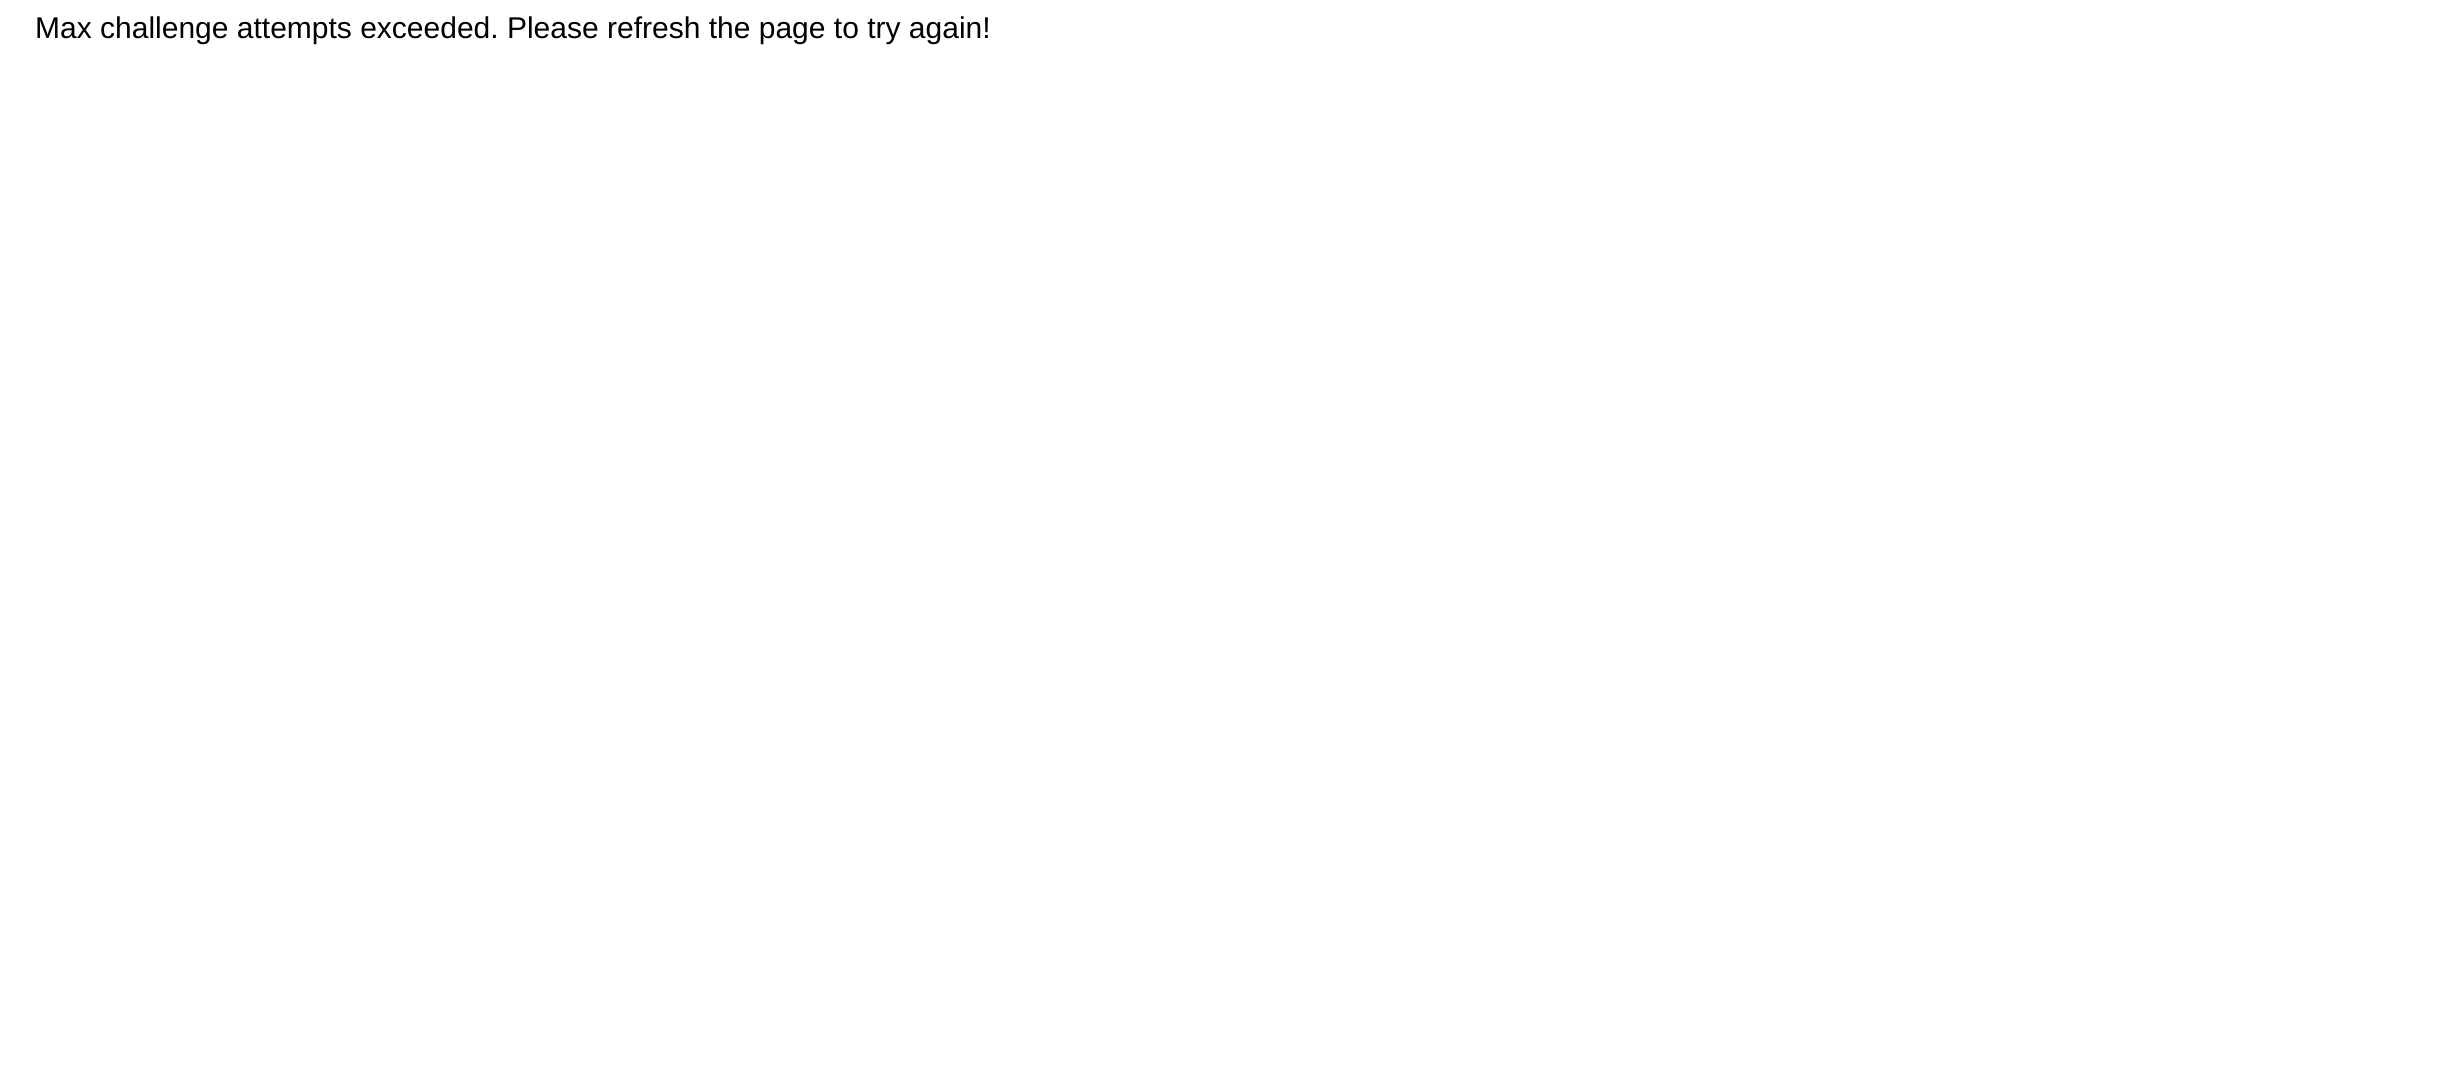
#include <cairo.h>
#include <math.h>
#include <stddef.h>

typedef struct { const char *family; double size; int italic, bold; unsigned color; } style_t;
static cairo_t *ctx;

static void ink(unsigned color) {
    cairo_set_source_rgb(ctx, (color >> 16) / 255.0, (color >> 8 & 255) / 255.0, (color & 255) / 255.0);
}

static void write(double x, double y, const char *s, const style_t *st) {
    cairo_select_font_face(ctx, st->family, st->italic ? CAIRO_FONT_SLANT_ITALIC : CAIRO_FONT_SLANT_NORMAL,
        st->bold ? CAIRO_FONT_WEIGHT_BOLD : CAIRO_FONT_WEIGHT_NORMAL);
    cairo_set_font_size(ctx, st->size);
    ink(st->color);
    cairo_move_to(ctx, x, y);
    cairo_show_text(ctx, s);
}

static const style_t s1 = {"Liberation Sans", 30, 0, 0, 0x000000};

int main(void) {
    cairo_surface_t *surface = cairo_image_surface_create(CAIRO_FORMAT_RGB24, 2450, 1080);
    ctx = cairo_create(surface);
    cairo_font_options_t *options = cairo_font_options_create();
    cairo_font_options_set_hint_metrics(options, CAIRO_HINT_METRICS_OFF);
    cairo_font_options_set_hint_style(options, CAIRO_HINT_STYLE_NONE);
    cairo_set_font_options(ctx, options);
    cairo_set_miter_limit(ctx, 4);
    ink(0xffffff);
    cairo_paint(ctx);
    write(35, 38, "Max challenge attempts exceeded. Please refresh the page to try again!", &s1);
    cairo_surface_write_to_png(surface, "screenshot.png");
    cairo_font_options_destroy(options);
    cairo_destroy(ctx);
    cairo_surface_destroy(surface);
    return 0;
}
